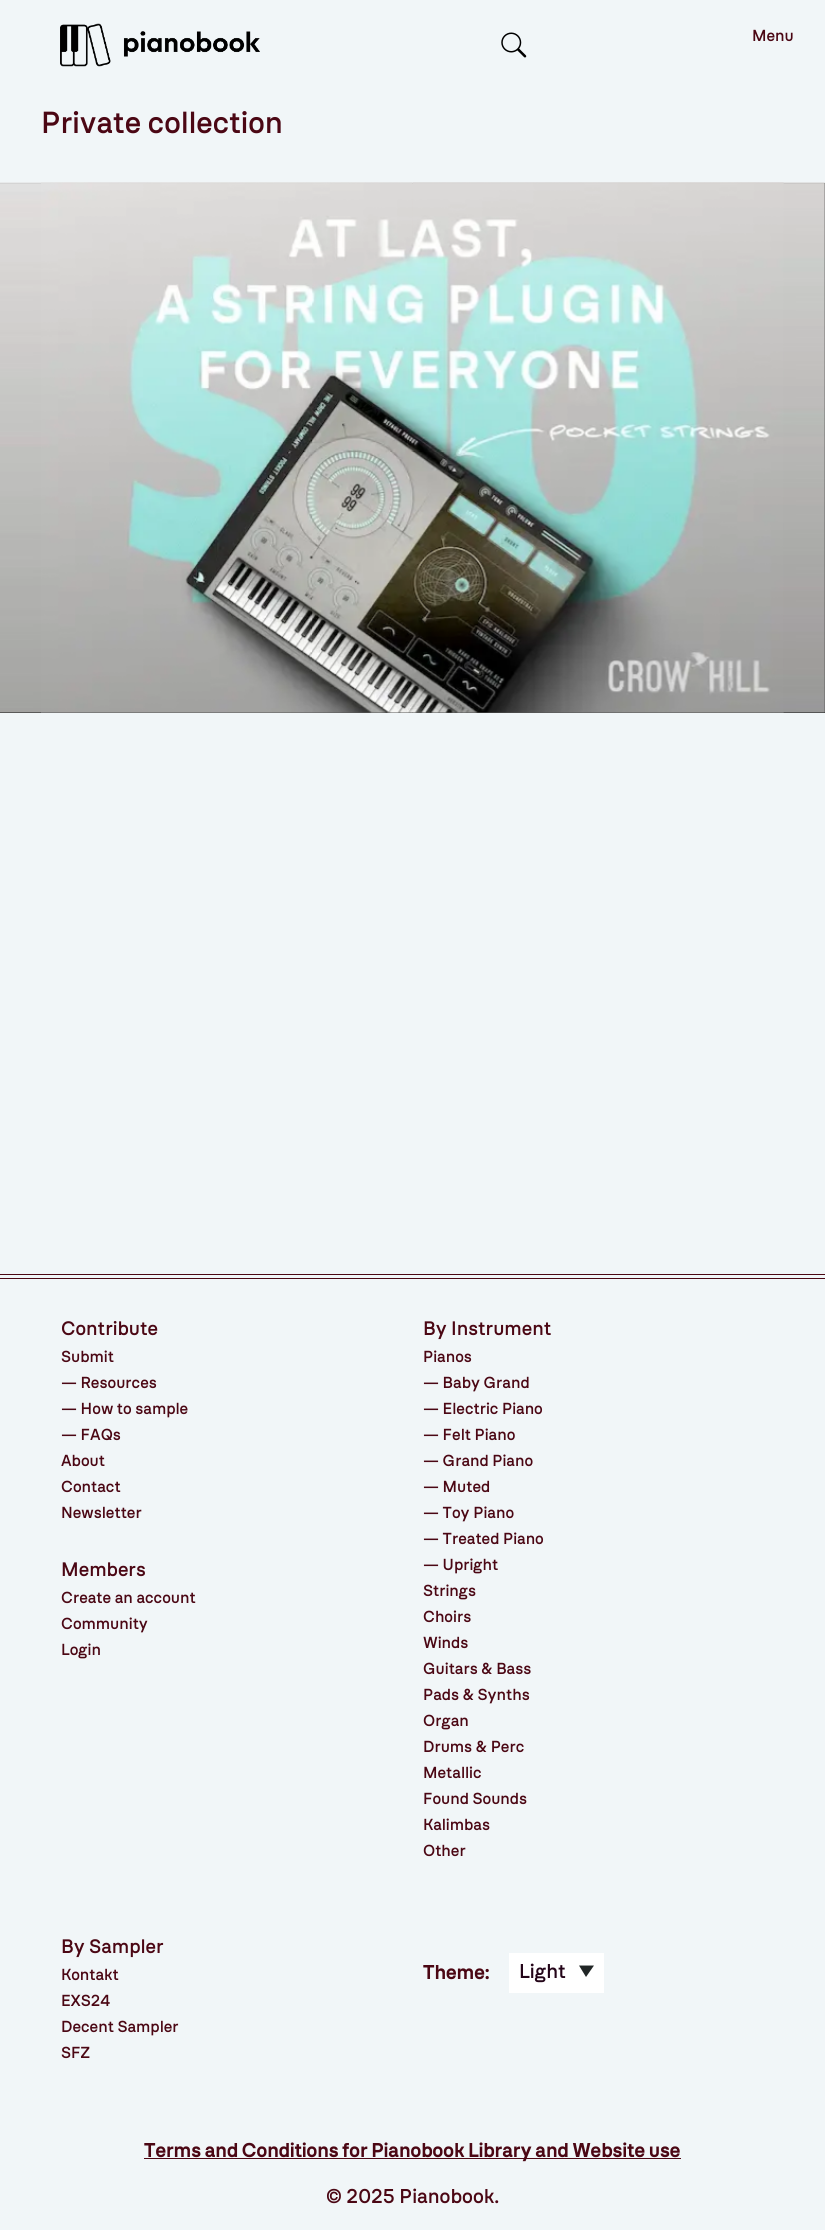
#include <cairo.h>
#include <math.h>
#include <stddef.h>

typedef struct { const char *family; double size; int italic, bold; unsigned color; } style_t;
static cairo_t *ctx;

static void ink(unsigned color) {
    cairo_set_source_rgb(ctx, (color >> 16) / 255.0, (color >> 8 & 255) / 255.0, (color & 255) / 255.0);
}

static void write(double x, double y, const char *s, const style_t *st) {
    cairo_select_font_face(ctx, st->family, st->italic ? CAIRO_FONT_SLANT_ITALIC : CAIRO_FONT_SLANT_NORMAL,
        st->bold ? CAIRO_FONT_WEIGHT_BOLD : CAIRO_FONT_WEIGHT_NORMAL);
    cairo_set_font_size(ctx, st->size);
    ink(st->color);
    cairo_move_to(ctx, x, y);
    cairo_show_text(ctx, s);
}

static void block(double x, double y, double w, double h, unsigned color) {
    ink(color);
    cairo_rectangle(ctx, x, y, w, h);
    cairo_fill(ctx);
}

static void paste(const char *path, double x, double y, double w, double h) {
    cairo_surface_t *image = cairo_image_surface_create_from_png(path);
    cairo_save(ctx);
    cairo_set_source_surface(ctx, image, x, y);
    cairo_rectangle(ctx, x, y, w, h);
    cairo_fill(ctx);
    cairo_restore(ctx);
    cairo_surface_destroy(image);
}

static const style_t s1 = {"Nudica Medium", 16, 0, 0, 0x4b0714};
static const style_t s2 = {"Nudica Medium", 30.5, 0, 0, 0x4b0714};
static const style_t s3 = {"Nudica Medium", 19.5, 0, 0, 0x4b0714};
static const style_t s4 = {"Nudica", 20, 0, 1, 0x4b0714};
static const style_t s5 = {"Nudica Medium", 20, 0, 0, 0x240519};
static const style_t s6 = {"Nudica Medium", 20, 0, 0, 0x4b0714};

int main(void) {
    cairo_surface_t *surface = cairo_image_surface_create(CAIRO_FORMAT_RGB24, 825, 2230);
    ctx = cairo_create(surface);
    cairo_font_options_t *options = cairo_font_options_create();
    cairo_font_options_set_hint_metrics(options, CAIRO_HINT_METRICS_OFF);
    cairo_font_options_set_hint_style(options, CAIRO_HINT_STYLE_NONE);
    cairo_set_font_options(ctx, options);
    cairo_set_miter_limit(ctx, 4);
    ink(0xf1f6f8);
    cairo_paint(ctx);
    paste("pic1.png", 60, 23, 200, 44);
    paste("pic2.png", 501, 32, 26, 26);
    write(752, 41, "Menu", &s1);
    write(41, 133, "Private collection", &s2);
    block(0, 183, 825, 530, 0x222222);
    paste("pic3.png", 0, 182, 413, 531);
    paste("pic5.png", 413, 182, 412, 531);
    paste("pic4.png", 41, 182, 743, 531);
    block(0, 1274, 825, 1, 0x4b0714);
    block(0, 1278, 825, 1, 0x4b0714);
    write(61, 1335, "Contribute", &s3);
    write(61, 1362, "Submit", &s1);
    write(61, 1388, "— Resources", &s1);
    write(61, 1414, "— How to sample", &s1);
    write(61, 1440, "— FAQs", &s1);
    write(61, 1466, "About", &s1);
    write(61, 1492, "Contact", &s1);
    write(61, 1518, "Newsletter", &s1);
    write(61, 1576, "Members", &s3);
    write(61, 1603, "Create an account", &s1);
    write(61, 1629, "Community", &s1);
    write(61, 1655, "Login", &s1);
    write(423, 1335, "By Instrument", &s3);
    write(423, 1362, "Pianos", &s1);
    write(423, 1388, "— Baby Grand", &s1);
    write(423, 1414, "— Electric Piano", &s1);
    write(423, 1440, "— Felt Piano", &s1);
    write(423, 1466, "— Grand Piano", &s1);
    write(423, 1492, "— Muted", &s1);
    write(423, 1518, "— Toy Piano", &s1);
    write(423, 1544, "— Treated Piano", &s1);
    write(423, 1570, "— Upright", &s1);
    write(423, 1596, "Strings", &s1);
    write(423, 1622, "Choirs", &s1);
    write(423, 1648, "Winds", &s1);
    write(423, 1674, "Guitars & Bass", &s1);
    write(423, 1700, "Pads & Synths", &s1);
    write(423, 1726, "Organ", &s1);
    write(423, 1752, "Drums & Perc", &s1);
    write(423, 1778, "Metallic", &s1);
    write(423, 1804, "Found Sounds", &s1);
    write(423, 1830, "Kalimbas", &s1);
    write(423, 1856, "Other", &s1);
    write(61, 1953, "By Sampler", &s3);
    write(61, 1980, "Kontakt", &s1);
    write(61, 2006, "EXS24", &s1);
    write(61, 2032, "Decent Sampler", &s1);
    write(61, 2058, "SFZ", &s1);
    write(423, 1979, "Theme:", &s4);
    block(509, 1953, 95, 40, 0xffffff);
    ink(0x212626);
    cairo_new_path(ctx);
    cairo_move_to(ctx, 579, 1965.5);
    cairo_line_to(ctx, 594, 1965.5);
    cairo_line_to(ctx, 586, 1977);
    cairo_close_path(ctx);
    cairo_fill(ctx);
    write(519, 1978, "Light", &s5);
    block(144, 2158, 537, 1, 0x4b0714);
    write(144, 2157, "Terms and Conditions for Pianobook Library and Website use", &s4);
    write(326, 2203, "© 2025 Pianobook.", &s6);
    cairo_surface_write_to_png(surface, "screenshot.png");
    cairo_font_options_destroy(options);
    cairo_destroy(ctx);
    cairo_surface_destroy(surface);
    return 0;
}
